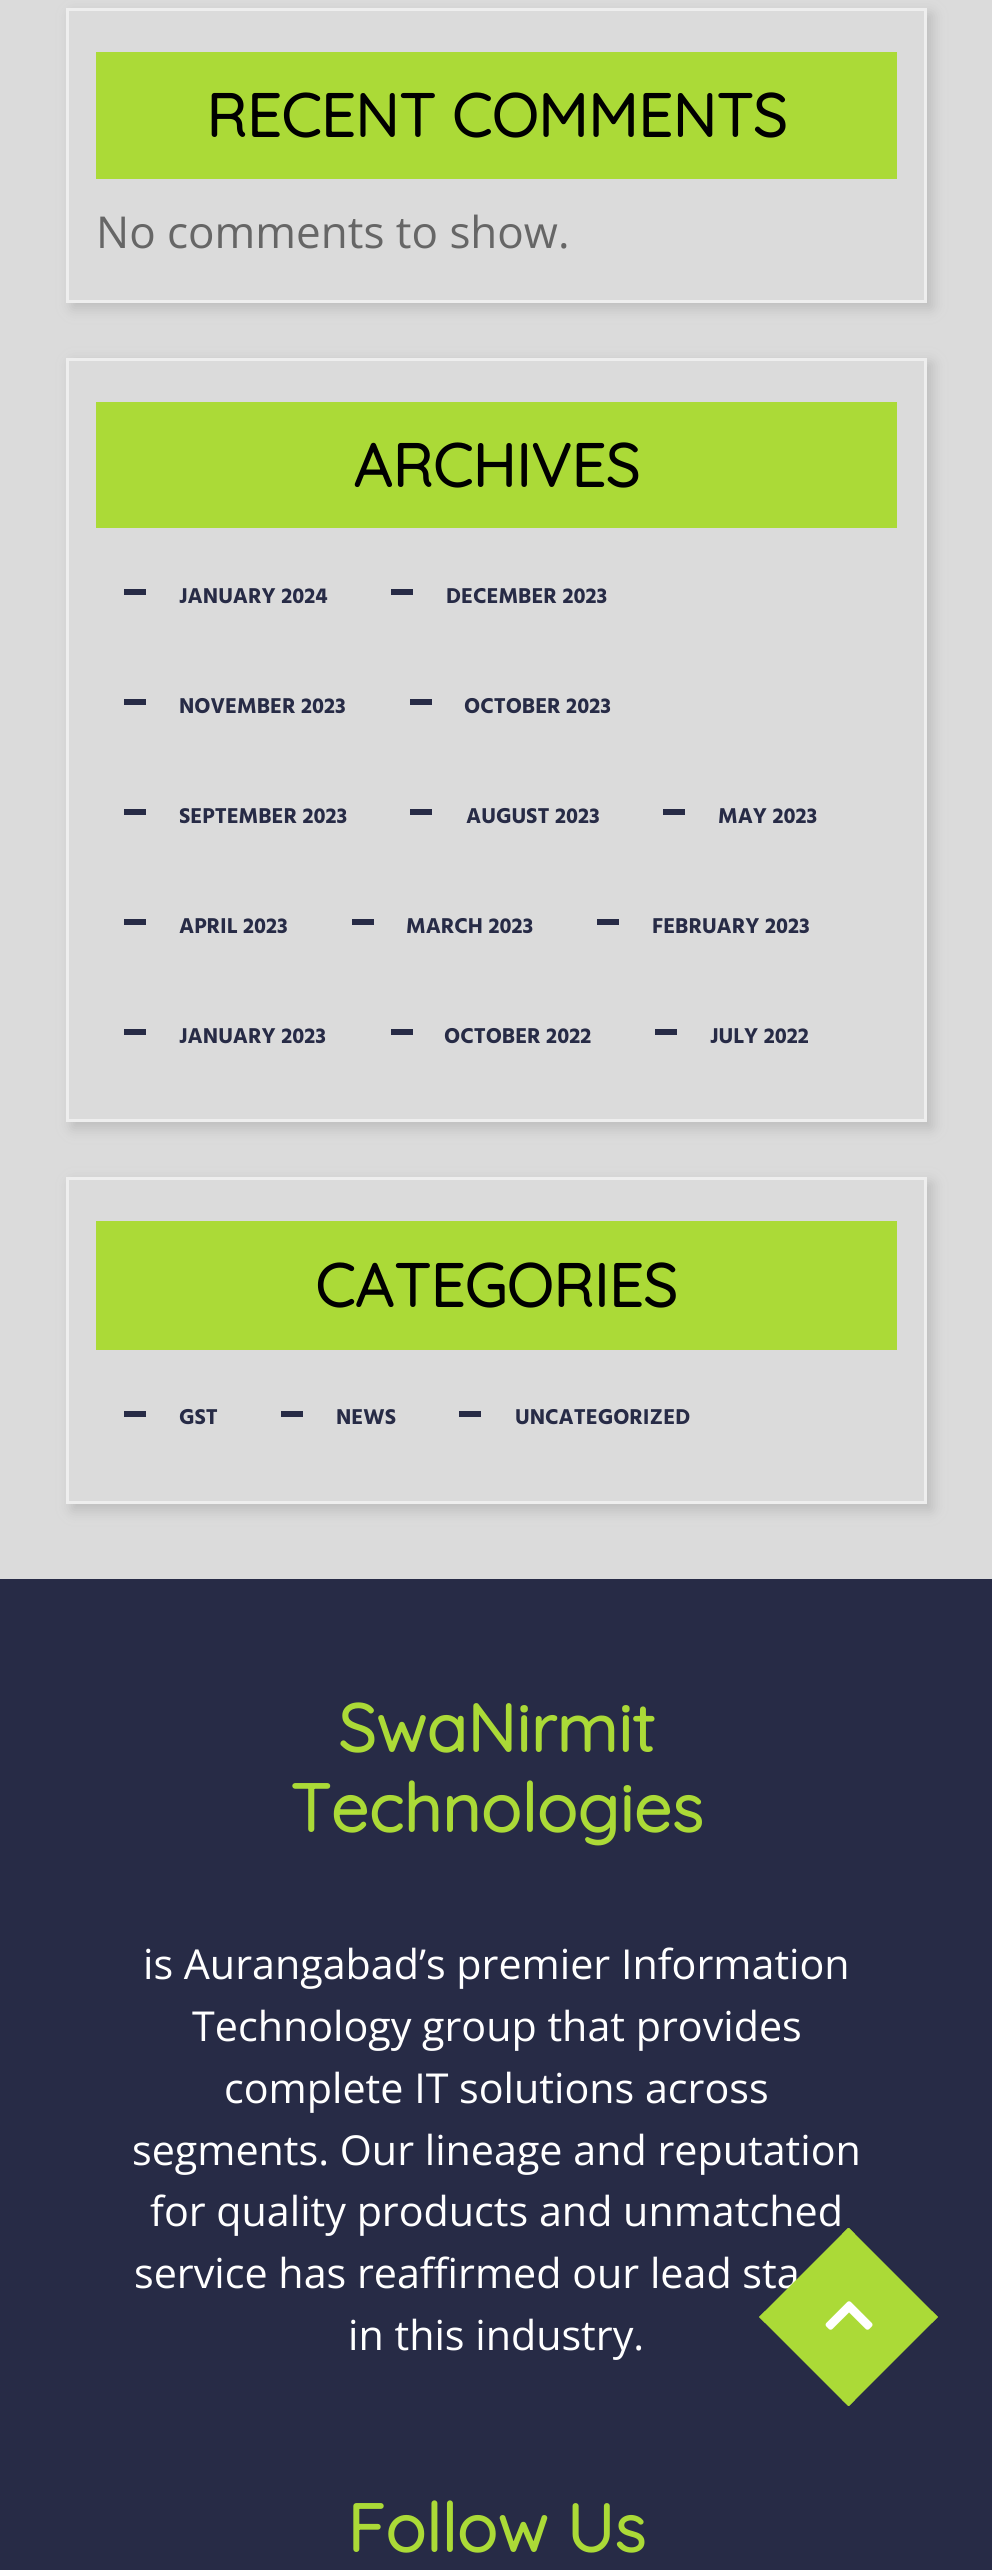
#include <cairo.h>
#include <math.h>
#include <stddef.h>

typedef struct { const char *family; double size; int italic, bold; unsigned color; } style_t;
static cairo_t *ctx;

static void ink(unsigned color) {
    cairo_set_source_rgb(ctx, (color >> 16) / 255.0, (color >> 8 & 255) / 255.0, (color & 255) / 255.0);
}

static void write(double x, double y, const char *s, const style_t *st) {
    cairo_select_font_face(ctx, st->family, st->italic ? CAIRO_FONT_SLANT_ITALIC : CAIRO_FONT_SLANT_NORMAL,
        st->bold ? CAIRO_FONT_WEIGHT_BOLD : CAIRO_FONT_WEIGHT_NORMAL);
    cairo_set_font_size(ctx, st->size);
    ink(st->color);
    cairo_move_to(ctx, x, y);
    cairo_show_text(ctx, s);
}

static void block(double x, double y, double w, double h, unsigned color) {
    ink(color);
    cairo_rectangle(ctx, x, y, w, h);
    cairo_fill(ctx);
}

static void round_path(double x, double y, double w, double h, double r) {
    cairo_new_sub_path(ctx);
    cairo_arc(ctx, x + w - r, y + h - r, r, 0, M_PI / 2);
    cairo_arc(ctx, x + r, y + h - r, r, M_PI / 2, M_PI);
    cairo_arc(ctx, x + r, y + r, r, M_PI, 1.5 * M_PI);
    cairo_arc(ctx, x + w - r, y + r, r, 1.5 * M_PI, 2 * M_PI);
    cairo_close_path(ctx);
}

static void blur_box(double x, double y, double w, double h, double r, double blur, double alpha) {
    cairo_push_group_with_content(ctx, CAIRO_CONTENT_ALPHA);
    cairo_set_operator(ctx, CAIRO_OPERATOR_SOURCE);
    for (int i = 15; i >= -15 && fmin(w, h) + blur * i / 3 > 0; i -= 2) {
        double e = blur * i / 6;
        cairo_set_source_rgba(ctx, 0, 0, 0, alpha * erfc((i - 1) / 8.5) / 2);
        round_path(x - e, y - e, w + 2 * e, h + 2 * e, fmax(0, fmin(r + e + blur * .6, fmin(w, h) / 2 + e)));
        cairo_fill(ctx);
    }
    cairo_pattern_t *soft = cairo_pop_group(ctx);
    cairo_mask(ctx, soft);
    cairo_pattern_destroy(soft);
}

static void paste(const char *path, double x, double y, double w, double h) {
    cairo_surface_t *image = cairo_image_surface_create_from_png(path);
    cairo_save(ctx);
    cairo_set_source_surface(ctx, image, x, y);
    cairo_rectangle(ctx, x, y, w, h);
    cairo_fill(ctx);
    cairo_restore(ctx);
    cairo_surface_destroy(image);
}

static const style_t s1 = {"Quicksand", 60.5, 0, 1, 0x000000};
static const style_t s2 = {"Open Sans", 44, 0, 0, 0x666666};
static const style_t s3 = {"Hind Siliguri", 22, 0, 1, 0x272b46};
static const style_t s4 = {"Quicksand", 67.25, 0, 1, 0xabda37};
static const style_t s5 = {"Open Sans", 41.25, 0, 0, 0xffffff};

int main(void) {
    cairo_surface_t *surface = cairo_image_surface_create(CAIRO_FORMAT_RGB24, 992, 2570);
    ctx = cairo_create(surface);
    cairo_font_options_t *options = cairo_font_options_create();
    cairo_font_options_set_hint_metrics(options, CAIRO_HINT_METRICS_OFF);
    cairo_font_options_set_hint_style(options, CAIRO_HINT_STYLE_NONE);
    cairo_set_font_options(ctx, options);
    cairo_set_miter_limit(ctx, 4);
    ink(0xdbdbdb);
    cairo_paint(ctx);
    cairo_save(ctx);
    cairo_set_fill_rule(ctx, CAIRO_FILL_RULE_EVEN_ODD);
    cairo_new_path(ctx);
    cairo_move_to(ctx, 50, 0);
    cairo_line_to(ctx, 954, 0);
    cairo_line_to(ctx, 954, 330);
    cairo_line_to(ctx, 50, 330);
    cairo_close_path(ctx);
    cairo_move_to(ctx, 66, 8);
    cairo_line_to(ctx, 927, 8);
    cairo_line_to(ctx, 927, 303);
    cairo_line_to(ctx, 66, 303);
    cairo_close_path(ctx);
    cairo_clip(ctx);
    ink(0xbbbbbb);
    blur_box(72, 14, 860, 294, 0, 7, 1);
    cairo_restore(ctx);
    cairo_rectangle(ctx, 67.5, 9.5, 858, 292);
    ink(0xeeeeee);
    cairo_set_line_width(ctx, 3);
    cairo_stroke(ctx);
    block(96, 52, 801, 127, 0xabda37);
    write(206, 137, "RECENT COMMENTS", &s1);
    write(96, 248, "No comments to show.", &s2);
    cairo_save(ctx);
    cairo_set_fill_rule(ctx, CAIRO_FILL_RULE_EVEN_ODD);
    cairo_new_path(ctx);
    cairo_move_to(ctx, 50, 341);
    cairo_line_to(ctx, 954, 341);
    cairo_line_to(ctx, 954, 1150);
    cairo_line_to(ctx, 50, 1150);
    cairo_close_path(ctx);
    cairo_move_to(ctx, 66, 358);
    cairo_line_to(ctx, 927, 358);
    cairo_line_to(ctx, 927, 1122);
    cairo_line_to(ctx, 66, 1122);
    cairo_close_path(ctx);
    cairo_clip(ctx);
    ink(0xbbbbbb);
    blur_box(72, 363, 860, 765, 0, 7, 1);
    cairo_restore(ctx);
    cairo_rectangle(ctx, 67.5, 359.5, 858, 761);
    ink(0xeeeeee);
    cairo_stroke(ctx);
    block(96, 402, 801, 126, 0xabda37);
    write(353, 487, "ARCHIVES", &s1);
    block(124, 589, 22, 6, 0x272b46);
    write(179, 603, "JANUARY 2024", &s3);
    block(391, 589, 22, 6, 0x272b46);
    write(446, 603, "DECEMBER 2023", &s3);
    block(124, 699, 22, 6, 0x272b46);
    write(179, 713, "NOVEMBER 2023", &s3);
    block(410, 699, 22, 6, 0x272b46);
    write(464, 713, "OCTOBER 2023", &s3);
    block(124, 809, 22, 6, 0x272b46);
    write(179, 823, "SEPTEMBER 2023", &s3);
    block(410, 809, 22, 6, 0x272b46);
    write(466, 823, "AUGUST 2023", &s3);
    block(663, 809, 22, 6, 0x272b46);
    write(718, 823, "MAY 2023", &s3);
    block(124, 919, 22, 6, 0x272b46);
    write(179, 933, "APRIL 2023", &s3);
    block(352, 919, 22, 6, 0x272b46);
    write(406, 933, "MARCH 2023", &s3);
    block(597, 919, 22, 6, 0x272b46);
    write(652, 933, "FEBRUARY 2023", &s3);
    block(124, 1029, 22, 6, 0x272b46);
    write(179, 1043, "JANUARY 2023", &s3);
    block(391, 1029, 22, 6, 0x272b46);
    write(444, 1043, "OCTOBER 2022", &s3);
    block(655, 1029, 22, 6, 0x272b46);
    write(710, 1043, "JULY 2022", &s3);
    cairo_save(ctx);
    cairo_set_fill_rule(ctx, CAIRO_FILL_RULE_EVEN_ODD);
    cairo_new_path(ctx);
    cairo_move_to(ctx, 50, 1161);
    cairo_line_to(ctx, 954, 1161);
    cairo_line_to(ctx, 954, 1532);
    cairo_line_to(ctx, 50, 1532);
    cairo_close_path(ctx);
    cairo_move_to(ctx, 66, 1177);
    cairo_line_to(ctx, 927, 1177);
    cairo_line_to(ctx, 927, 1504);
    cairo_line_to(ctx, 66, 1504);
    cairo_close_path(ctx);
    cairo_clip(ctx);
    ink(0xbbbbbb);
    blur_box(72, 1183, 860, 327, 0, 7, 1);
    cairo_restore(ctx);
    cairo_rectangle(ctx, 67.5, 1178.5, 858, 324);
    ink(0xeeeeee);
    cairo_stroke(ctx);
    block(96, 1221, 801, 129, 0xabda37);
    write(315, 1307, "CATEGORIES", &s1);
    block(124, 1411, 22, 6, 0x272b46);
    write(179, 1424, "GST", &s3);
    block(281, 1411, 22, 6, 0x272b46);
    write(336, 1424, "NEWS", &s3);
    block(459, 1411, 22, 6, 0x272b46);
    write(515, 1424, "UNCATEGORIZED", &s3);
    block(0, 1579, 992, 991, 0x272b46);
    write(338, 1752, "SwaNirmit", &s4);
    write(290, 1832, "Technologies", &s4);
    write(143, 1979, "is Aurangabad’s premier Information", &s5);
    write(192, 2041, "Technology group that provides", &s5);
    write(224, 2103, "complete IT solutions across", &s5);
    write(132, 2165, "segments. Our lineage and reputation", &s5);
    write(150, 2226, "for quality products and unmatched", &s5);
    write(134, 2288, "service has reaffirmed our lead sta", &s5);
    write(348, 2350, "in this industry.", &s5);
    write(347, 2552, "Follow Us", &s4);
    cairo_new_path(ctx);
    cairo_move_to(ctx, 848, 2406);
    cairo_line_to(ctx, 759, 2317);
    cairo_line_to(ctx, 848, 2228);
    cairo_line_to(ctx, 849, 2228);
    cairo_line_to(ctx, 938, 2317);
    cairo_line_to(ctx, 849, 2406);
    cairo_close_path(ctx);
    cairo_fill(ctx);
    cairo_set_fill_rule(ctx, CAIRO_FILL_RULE_EVEN_ODD);
    cairo_new_path(ctx);
    cairo_move_to(ctx, 849, 2406);
    cairo_line_to(ctx, 842, 2400);
    cairo_line_to(ctx, 855, 2400);
    cairo_close_path(ctx);
    cairo_move_to(ctx, 849, 2228);
    cairo_line_to(ctx, 848, 2228);
    cairo_line_to(ctx, 842, 2234);
    cairo_line_to(ctx, 855, 2234);
    cairo_close_path(ctx);
    cairo_move_to(ctx, 932, 2311);
    cairo_line_to(ctx, 932, 2323);
    cairo_line_to(ctx, 938, 2317);
    cairo_close_path(ctx);
    cairo_move_to(ctx, 765, 2311);
    cairo_line_to(ctx, 759, 2317);
    cairo_line_to(ctx, 765, 2323);
    cairo_close_path(ctx);
    cairo_fill(ctx);
    paste("pic1.png", 825, 2301, 48, 29);
    cairo_surface_write_to_png(surface, "screenshot.png");
    cairo_font_options_destroy(options);
    cairo_destroy(ctx);
    cairo_surface_destroy(surface);
    return 0;
}
